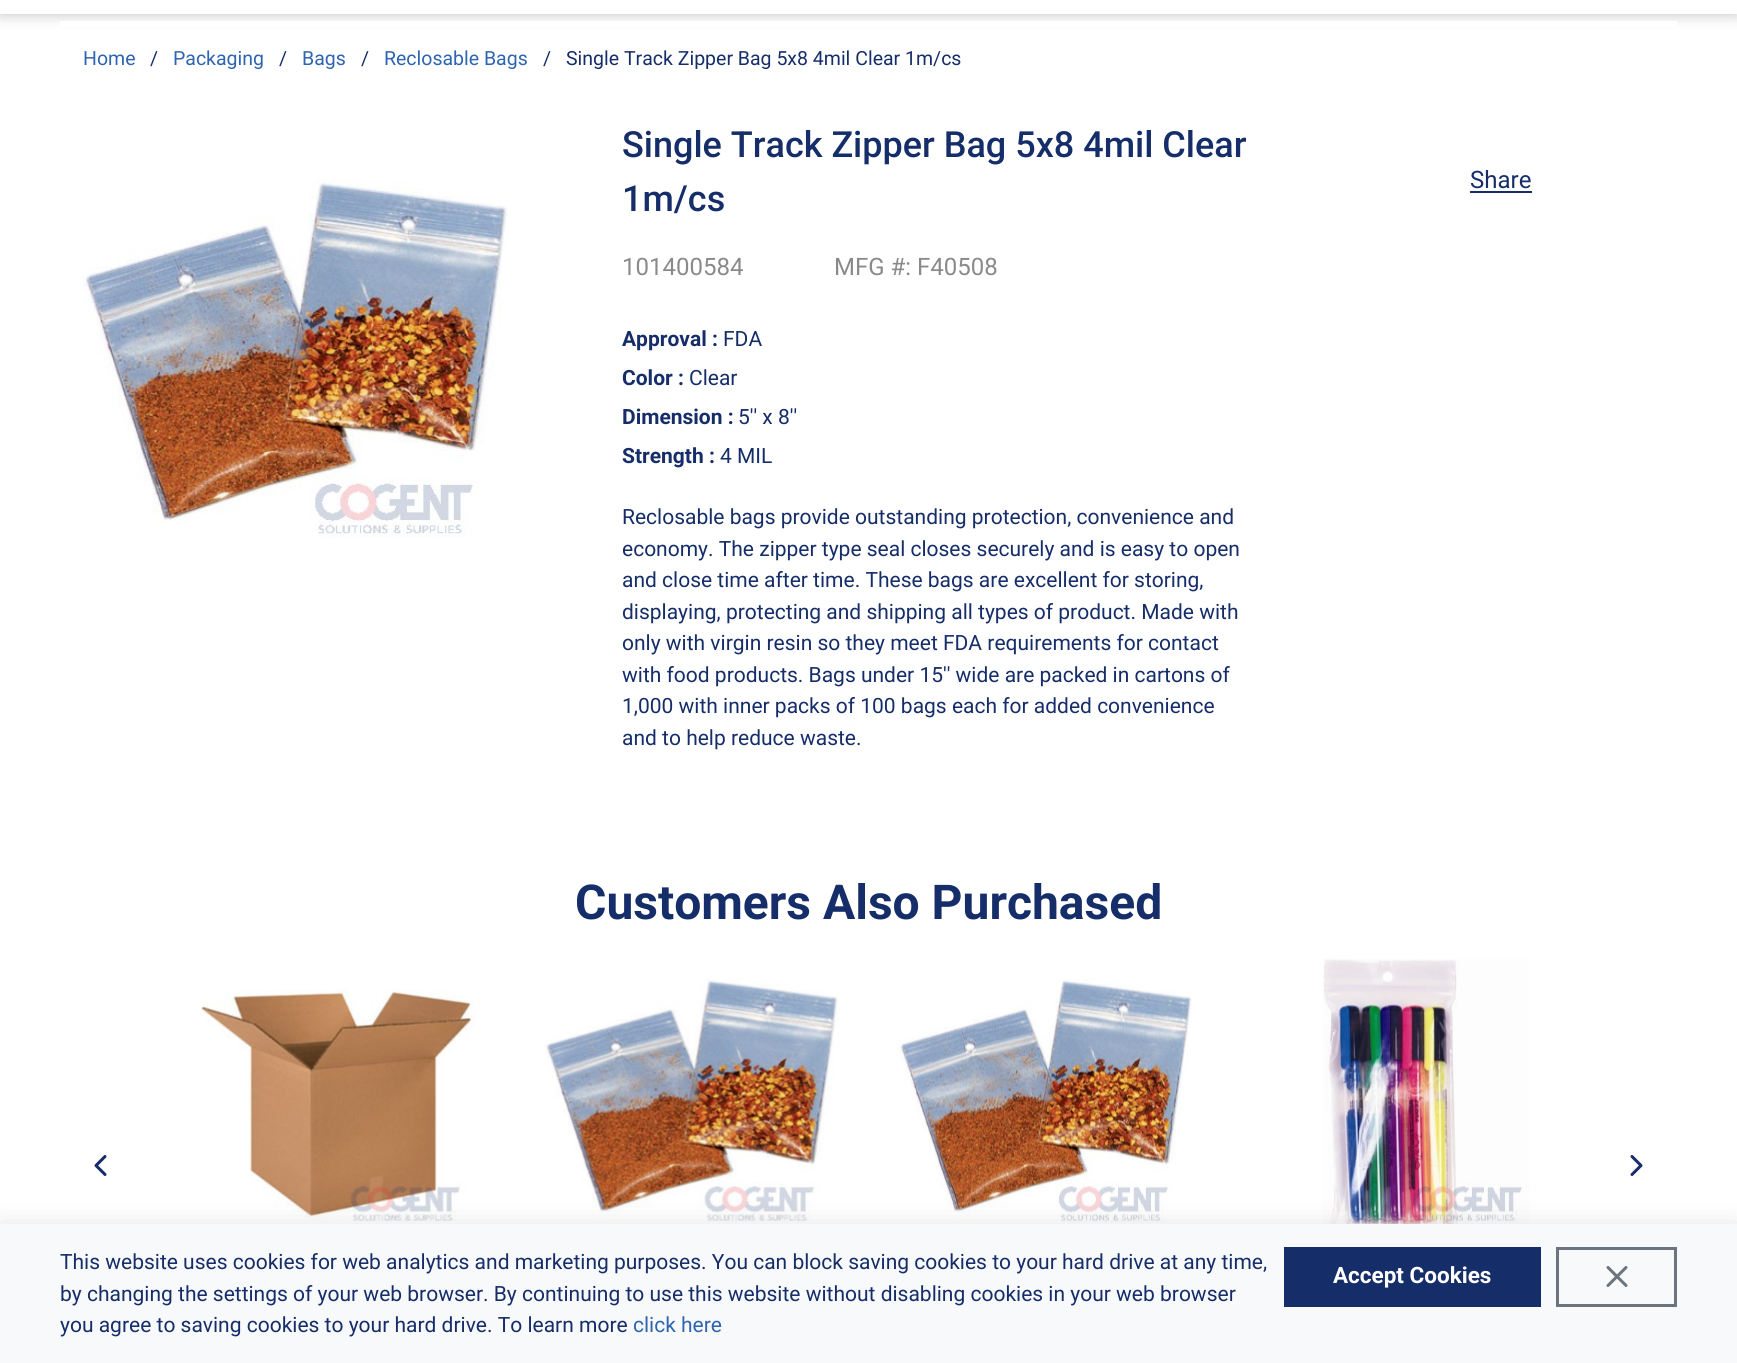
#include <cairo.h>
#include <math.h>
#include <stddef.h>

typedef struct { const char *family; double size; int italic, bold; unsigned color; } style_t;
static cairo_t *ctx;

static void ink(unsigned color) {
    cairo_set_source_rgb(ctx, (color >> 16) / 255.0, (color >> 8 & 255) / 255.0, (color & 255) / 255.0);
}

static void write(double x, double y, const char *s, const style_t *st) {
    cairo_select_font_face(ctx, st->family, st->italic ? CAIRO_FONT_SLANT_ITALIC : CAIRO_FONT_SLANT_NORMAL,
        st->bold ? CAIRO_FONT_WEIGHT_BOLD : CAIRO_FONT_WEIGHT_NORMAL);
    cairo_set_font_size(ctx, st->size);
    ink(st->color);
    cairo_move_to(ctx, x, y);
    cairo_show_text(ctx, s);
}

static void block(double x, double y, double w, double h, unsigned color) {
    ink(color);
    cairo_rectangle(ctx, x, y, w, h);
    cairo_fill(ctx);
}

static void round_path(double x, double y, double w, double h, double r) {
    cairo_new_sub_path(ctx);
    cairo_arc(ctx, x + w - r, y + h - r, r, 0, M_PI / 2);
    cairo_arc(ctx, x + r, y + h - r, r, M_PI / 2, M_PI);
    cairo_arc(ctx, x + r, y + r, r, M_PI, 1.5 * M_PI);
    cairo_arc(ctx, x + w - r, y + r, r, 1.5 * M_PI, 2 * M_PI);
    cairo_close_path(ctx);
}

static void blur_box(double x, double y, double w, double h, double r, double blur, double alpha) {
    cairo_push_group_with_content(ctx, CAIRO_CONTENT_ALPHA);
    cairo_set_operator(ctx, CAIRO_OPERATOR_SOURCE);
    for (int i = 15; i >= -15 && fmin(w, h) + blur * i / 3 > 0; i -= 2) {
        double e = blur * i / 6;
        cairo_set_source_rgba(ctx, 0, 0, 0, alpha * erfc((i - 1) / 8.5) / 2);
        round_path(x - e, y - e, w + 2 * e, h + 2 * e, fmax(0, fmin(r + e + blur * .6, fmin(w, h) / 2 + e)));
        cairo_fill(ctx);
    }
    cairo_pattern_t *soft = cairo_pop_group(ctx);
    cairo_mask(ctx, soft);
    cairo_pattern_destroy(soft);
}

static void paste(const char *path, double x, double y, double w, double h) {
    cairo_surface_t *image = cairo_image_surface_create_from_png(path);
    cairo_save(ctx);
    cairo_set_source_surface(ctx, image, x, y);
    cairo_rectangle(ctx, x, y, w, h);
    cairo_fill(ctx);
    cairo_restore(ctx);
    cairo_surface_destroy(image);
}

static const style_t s1 = {"Roboto", 19.5, 0, 0, 0x2e64b0};
static const style_t s2 = {"Roboto", 19.5, 0, 0, 0x152d69};
static const style_t s3 = {"Roboto Medium", 36, 0, 0, 0x152d69};
static const style_t s4 = {"Roboto", 24, 0, 0, 0x8a8a8a};
static const style_t s5 = {"Roboto", 21, 0, 1, 0x152d69};
static const style_t s6 = {"Roboto", 21, 0, 0, 0x152d69};
static const style_t s7 = {"Roboto", 24, 0, 0, 0x152d69};
static const style_t s8 = {"Roboto", 48, 0, 1, 0x152d69};
static const style_t s9 = {"Roboto", 21, 0, 0, 0x2e64b0};
static const style_t s10 = {"Roboto", 22.5, 0, 1, 0xffffff};

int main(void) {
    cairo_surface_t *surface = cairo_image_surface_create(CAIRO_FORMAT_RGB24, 1737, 1363);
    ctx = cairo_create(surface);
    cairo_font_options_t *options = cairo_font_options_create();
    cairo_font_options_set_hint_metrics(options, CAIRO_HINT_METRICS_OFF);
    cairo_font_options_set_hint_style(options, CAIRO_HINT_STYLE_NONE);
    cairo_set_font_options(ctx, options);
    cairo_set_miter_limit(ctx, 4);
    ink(0xffffff);
    cairo_paint(ctx);
    ink(0x000000);
    blur_box(0, -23, 1737, 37, 0, 7.5, 0.25);
    block(0, 0, 1737, 14, 0xffffff);
    block(60, 21, 1617, 6, 0xffffff);
    write(83, 65, "Home", &s1);
    write(150, 65, "/", &s2);
    write(173, 65, "Packaging", &s1);
    write(279, 65, "/", &s2);
    write(302, 65, "Bags", &s1);
    write(361, 65, "/", &s2);
    write(384, 65, "Reclosable Bags", &s1);
    write(543, 65, "/", &s2);
    write(566, 65, "Single Track Zipper Bag 5x8 4mil Clear 1m/cs", &s2);
    paste("pic1.png", 83, 179, 425, 359);
    write(622, 157, "Single Track Zipper Bag 5x8 4mil Clear", &s3);
    write(622, 211, "1m/cs", &s3);
    write(622, 275, "101400584", &s4);
    write(834, 275, "MFG #: F40508", &s4);
    write(622, 346, "Approval :", &s5);
    write(723, 346, "FDA", &s6);
    write(622, 385, "Color :", &s5);
    write(689, 385, "Clear", &s6);
    write(622, 424, "Dimension :", &s5);
    write(738, 424, "5'' x 8''", &s6);
    write(622, 463, "Strength :", &s5);
    write(720, 463, "4 MIL", &s6);
    write(622, 524, "Reclosable bags provide outstanding protection, convenience and", &s6);
    write(622, 556, "economy. The zipper type seal closes securely and is easy to open", &s6);
    write(622, 587, "and close time after time. These bags are excellent for storing,", &s6);
    write(622, 619, "displaying, protecting and shipping all types of product. Made with", &s6);
    write(622, 650, "only with virgin resin so they meet FDA requirements for contact", &s6);
    write(622, 682, "with food products. Bags under 15'' wide are packed in cartons of", &s6);
    write(622, 713, "1,000 with inner packs of 100 bags each for added convenience", &s6);
    write(622, 745, "and to help reduce waste.", &s6);
    write(1470, 188, "Share", &s7);
    block(1470, 191, 62, 2, 0x152d69);
    write(575, 919, "Customers Also Purchased", &s8);
    cairo_new_path(ctx);
    cairo_move_to(ctx, 105, 1174.5);
    cairo_line_to(ctx, 96, 1165.5);
    cairo_line_to(ctx, 105, 1156.5);
    cairo_set_line_width(ctx, 3);
    cairo_set_line_cap(ctx, CAIRO_LINE_CAP_ROUND);
    cairo_set_line_join(ctx, CAIRO_LINE_JOIN_ROUND);
    cairo_stroke(ctx);
    paste("pic2.png", 201, 989, 276, 232);
    paste("pic3.png", 545, 978, 294, 243);
    paste("pic4.png", 899, 978, 293, 245);
    paste("pic5.png", 1323, 959, 207, 265);
    cairo_new_path(ctx);
    cairo_move_to(ctx, 1632, 1174.5);
    cairo_line_to(ctx, 1641, 1165.5);
    cairo_line_to(ctx, 1632, 1156.5);
    cairo_stroke(ctx);
    ink(0x000000);
    blur_box(0, 1226, 1737, 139, 0, 13.5, 0.12);
    block(0, 1224, 1737, 139, 0xf8f9fa);
    write(60, 1269, "This website uses cookies for web analytics and marketing purposes. You can block saving cookies to your hard drive at any time,", &s6);
    write(60, 1301, "by changing the settings of your web browser. By continuing to use this website without disabling cookies in your web browser", &s6);
    write(60, 1332, "you agree to saving cookies to your hard drive. To learn more", &s6);
    write(633, 1332, "click here", &s9);
    block(1284, 1247, 257, 60, 0x152d69);
    write(1333, 1283, "Accept Cookies", &s10);
    cairo_rectangle(ctx, 1557.5, 1248.5, 118, 57);
    ink(0x6c757d);
    cairo_set_line_cap(ctx, CAIRO_LINE_CAP_BUTT);
    cairo_set_line_join(ctx, CAIRO_LINE_JOIN_MITER);
    cairo_stroke(ctx);
    cairo_new_path(ctx);
    cairo_move_to(ctx, 1626, 1267.5);
    cairo_line_to(ctx, 1608, 1285.5);
    cairo_move_to(ctx, 1608, 1267.5);
    cairo_line_to(ctx, 1626, 1285.5);
    cairo_set_line_cap(ctx, CAIRO_LINE_CAP_ROUND);
    cairo_set_line_join(ctx, CAIRO_LINE_JOIN_ROUND);
    cairo_stroke(ctx);
    cairo_surface_write_to_png(surface, "screenshot.png");
    cairo_font_options_destroy(options);
    cairo_destroy(ctx);
    cairo_surface_destroy(surface);
    return 0;
}
